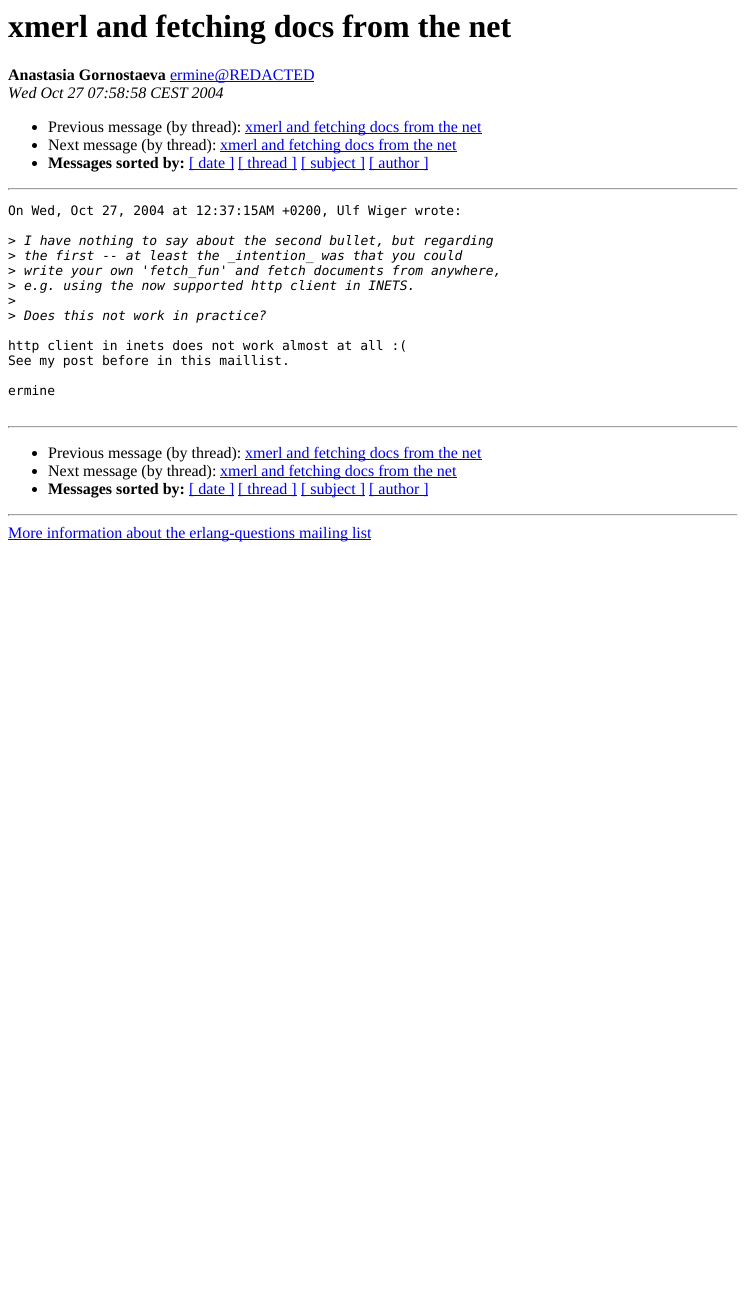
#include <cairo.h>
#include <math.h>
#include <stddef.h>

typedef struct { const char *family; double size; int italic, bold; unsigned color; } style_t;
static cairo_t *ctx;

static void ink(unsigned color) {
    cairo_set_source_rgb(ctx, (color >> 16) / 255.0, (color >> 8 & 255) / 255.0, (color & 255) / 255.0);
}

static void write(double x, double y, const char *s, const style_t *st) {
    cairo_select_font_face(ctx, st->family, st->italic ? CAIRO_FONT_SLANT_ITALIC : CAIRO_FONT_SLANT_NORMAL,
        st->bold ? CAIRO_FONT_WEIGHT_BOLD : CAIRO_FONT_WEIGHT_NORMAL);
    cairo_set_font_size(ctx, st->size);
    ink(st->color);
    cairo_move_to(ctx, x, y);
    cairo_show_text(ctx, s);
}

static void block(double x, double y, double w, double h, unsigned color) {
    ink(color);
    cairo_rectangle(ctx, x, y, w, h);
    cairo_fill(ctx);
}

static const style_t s1 = {"Liberation Serif", 32, 0, 1, 0x000000};
static const style_t s2 = {"Liberation Serif", 16, 0, 1, 0x000000};
static const style_t s3 = {"Liberation Serif", 16, 0, 0, 0x0000ee};
static const style_t s4 = {"Liberation Serif", 16, 1, 0, 0x000000};
static const style_t s5 = {"Liberation Serif", 16, 0, 0, 0x000000};
static const style_t s6 = {"DejaVu Sans Mono", 13, 0, 0, 0x000000};
static const style_t s7 = {"DejaVu Sans Mono", 13, 1, 0, 0x000000};

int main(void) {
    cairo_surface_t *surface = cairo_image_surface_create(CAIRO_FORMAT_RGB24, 746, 1300);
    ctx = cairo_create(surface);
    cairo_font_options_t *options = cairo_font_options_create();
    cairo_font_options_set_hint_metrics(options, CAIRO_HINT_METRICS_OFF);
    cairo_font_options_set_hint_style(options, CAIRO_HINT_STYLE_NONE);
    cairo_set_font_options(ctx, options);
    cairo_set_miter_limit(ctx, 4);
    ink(0xffffff);
    cairo_paint(ctx);
    write(8, 37, "xmerl and fetching docs from the net", &s1);
    write(8, 80, "Anastasia Gornostaeva", &s2);
    block(170, 81, 144, 1, 0x0000ee);
    write(170, 80, "ermine@REDACTED", &s3);
    write(8, 98, "Wed Oct 27 07:58:58 CEST 2004", &s4);
    cairo_new_path(ctx);
    cairo_arc(ctx, 34.5, 127.5, 2.5, 0, 2 * M_PI);
    cairo_fill(ctx);
    write(48, 132, "Previous message (by thread):", &s5);
    block(245, 133, 237, 1, 0x0000ee);
    write(245, 132, "xmerl and fetching docs from the net", &s3);
    ink(0x000000);
    cairo_new_path(ctx);
    cairo_arc(ctx, 34.5, 145.5, 2.5, 0, 2 * M_PI);
    cairo_fill(ctx);
    write(48, 150, "Next message (by thread):", &s5);
    block(220, 151, 237, 1, 0x0000ee);
    write(220, 150, "xmerl and fetching docs from the net", &s3);
    ink(0x000000);
    cairo_new_path(ctx);
    cairo_arc(ctx, 34.5, 163.5, 2.5, 0, 2 * M_PI);
    cairo_fill(ctx);
    write(48, 168, "Messages sorted by:", &s2);
    block(189, 169, 45, 1, 0x0000ee);
    write(189, 168, "[ date ]", &s3);
    block(238, 169, 59, 1, 0x0000ee);
    write(238, 168, "[ thread ]", &s3);
    block(301, 169, 64, 1, 0x0000ee);
    write(301, 168, "[ subject ]", &s3);
    block(369, 169, 59, 1, 0x0000ee);
    write(369, 168, "[ author ]", &s3);
    block(8, 188, 730, 1, 0x9f9f9f);
    block(737, 188, 1, 2, 0xeeeeee);
    block(8, 189, 730, 1, 0xeeeeee);
    block(8, 188, 1, 2, 0x9f9f9f);
    write(8, 215, "On Wed, Oct 27, 2004 at 12:37:15AM +0200, Ulf Wiger wrote:", &s6);
    write(8, 245, ">", &s6);
    write(24, 245, "I have nothing to say about the second bullet, but regarding", &s7);
    write(8, 260, ">", &s6);
    write(24, 260, "the first -- at least the _intention_ was that you could", &s7);
    write(8, 275, ">", &s6);
    write(24, 275, "write your own 'fetch_fun' and fetch documents from anywhere,", &s7);
    write(8, 290, ">", &s6);
    write(24, 290, "e.g. using the now supported http client in INETS.", &s7);
    write(8, 305, ">", &s6);
    write(8, 320, ">", &s6);
    write(24, 320, "Does this not work in practice?", &s7);
    write(8, 350, "http client in inets does not work almost at all :(", &s6);
    write(8, 365, "See my post before in this maillist.", &s6);
    write(8, 395, "ermine", &s6);
    block(8, 426, 730, 1, 0x9f9f9f);
    block(737, 426, 1, 2, 0xeeeeee);
    block(8, 427, 730, 1, 0xeeeeee);
    block(8, 426, 1, 2, 0x9f9f9f);
    ink(0x000000);
    cairo_new_path(ctx);
    cairo_arc(ctx, 34.5, 453.5, 2.5, 0, 2 * M_PI);
    cairo_fill(ctx);
    write(48, 458, "Previous message (by thread):", &s5);
    block(245, 459, 237, 1, 0x0000ee);
    write(245, 458, "xmerl and fetching docs from the net", &s3);
    ink(0x000000);
    cairo_new_path(ctx);
    cairo_arc(ctx, 34.5, 471.5, 2.5, 0, 2 * M_PI);
    cairo_fill(ctx);
    write(48, 476, "Next message (by thread):", &s5);
    block(220, 477, 237, 1, 0x0000ee);
    write(220, 476, "xmerl and fetching docs from the net", &s3);
    ink(0x000000);
    cairo_new_path(ctx);
    cairo_arc(ctx, 34.5, 489.5, 2.5, 0, 2 * M_PI);
    cairo_fill(ctx);
    write(48, 494, "Messages sorted by:", &s2);
    block(189, 495, 45, 1, 0x0000ee);
    write(189, 494, "[ date ]", &s3);
    block(238, 495, 59, 1, 0x0000ee);
    write(238, 494, "[ thread ]", &s3);
    block(301, 495, 64, 1, 0x0000ee);
    write(301, 494, "[ subject ]", &s3);
    block(369, 495, 59, 1, 0x0000ee);
    write(369, 494, "[ author ]", &s3);
    block(8, 514, 730, 1, 0x9f9f9f);
    block(737, 514, 1, 2, 0xeeeeee);
    block(8, 515, 730, 1, 0xeeeeee);
    block(8, 514, 1, 2, 0x9f9f9f);
    block(8, 539, 363, 1, 0x0000ee);
    write(8, 538, "More information about the erlang-questions mailing list", &s3);
    cairo_surface_write_to_png(surface, "screenshot.png");
    cairo_font_options_destroy(options);
    cairo_destroy(ctx);
    cairo_surface_destroy(surface);
    return 0;
}
